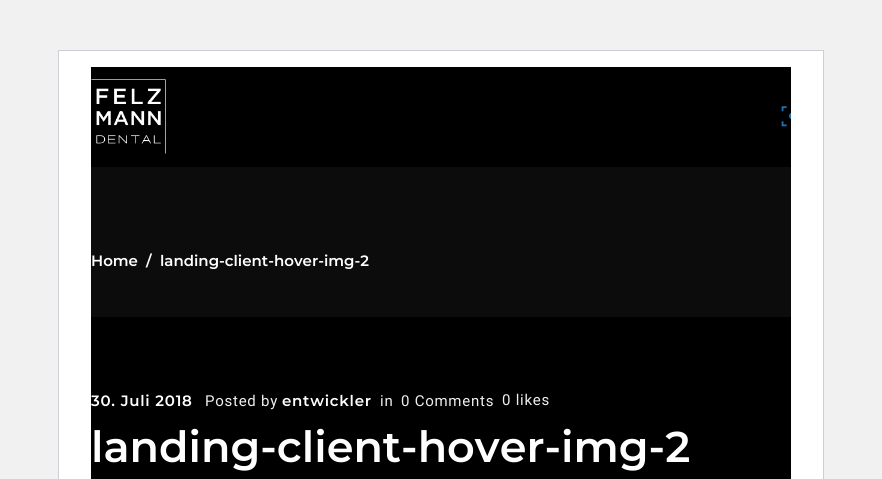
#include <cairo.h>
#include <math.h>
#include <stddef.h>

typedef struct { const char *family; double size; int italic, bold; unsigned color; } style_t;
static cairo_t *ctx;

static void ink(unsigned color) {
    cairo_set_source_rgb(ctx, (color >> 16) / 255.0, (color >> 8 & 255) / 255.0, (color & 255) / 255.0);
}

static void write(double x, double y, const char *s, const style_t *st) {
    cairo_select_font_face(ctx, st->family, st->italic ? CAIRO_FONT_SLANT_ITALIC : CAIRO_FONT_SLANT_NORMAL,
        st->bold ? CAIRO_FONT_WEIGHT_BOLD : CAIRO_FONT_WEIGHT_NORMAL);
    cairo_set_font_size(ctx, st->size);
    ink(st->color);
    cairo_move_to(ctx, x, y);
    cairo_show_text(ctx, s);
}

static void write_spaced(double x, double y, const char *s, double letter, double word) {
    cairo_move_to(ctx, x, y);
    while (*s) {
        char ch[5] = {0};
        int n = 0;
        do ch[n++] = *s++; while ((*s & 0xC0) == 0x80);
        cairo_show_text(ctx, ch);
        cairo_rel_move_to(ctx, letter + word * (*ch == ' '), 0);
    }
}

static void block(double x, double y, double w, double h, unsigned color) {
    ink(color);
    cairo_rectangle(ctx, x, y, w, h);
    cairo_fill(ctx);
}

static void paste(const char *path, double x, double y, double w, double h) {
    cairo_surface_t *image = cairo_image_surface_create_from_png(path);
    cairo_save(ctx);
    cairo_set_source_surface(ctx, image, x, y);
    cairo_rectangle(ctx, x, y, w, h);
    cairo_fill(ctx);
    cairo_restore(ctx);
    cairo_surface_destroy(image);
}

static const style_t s1 = {"Montserrat SemiBold", 15, 0, 0, 0xffffff};
static const style_t s2 = {"Montserrat SemiBold", 43, 0, 0, 0xffffff};

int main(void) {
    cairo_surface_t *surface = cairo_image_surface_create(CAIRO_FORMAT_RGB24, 882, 479);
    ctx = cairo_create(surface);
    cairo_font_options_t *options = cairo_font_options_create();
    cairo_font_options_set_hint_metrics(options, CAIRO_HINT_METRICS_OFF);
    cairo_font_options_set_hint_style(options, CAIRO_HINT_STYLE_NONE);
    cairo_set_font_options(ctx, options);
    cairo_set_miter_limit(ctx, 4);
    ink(0xf1f1f1);
    cairo_paint(ctx);
    ink(0xffffff);
    cairo_rectangle(ctx, 58.5, 50.5, 765, 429);
    cairo_fill_preserve(ctx);
    ink(0xccd0d4);
    cairo_set_line_width(ctx, 1);
    cairo_stroke(ctx);
    block(91, 67, 700, 100, 0x000000);
    paste("pic1.png", 91, 79, 75, 75);
    paste("pic2.png", 781, 106, 10, 21);
    block(91, 317, 700, 162, 0x000000);
    block(91, 167, 700, 150, 0x0c0c0c);
    write(91, 266, "Home", &s1);
    write(146, 266, "/", &s1);
    write(160, 266, "landing-client-hover-img-2", &s1);
    write_spaced(91, 406, "30. Juli 2018", 0.75, 0);
    cairo_select_font_face(ctx, "Roboto", CAIRO_FONT_SLANT_NORMAL, CAIRO_FONT_WEIGHT_NORMAL);
    ink(0xefefef);
    write_spaced(205, 406, "Posted by", 0.75, 0);
    cairo_select_font_face(ctx, "Montserrat SemiBold", CAIRO_FONT_SLANT_NORMAL, CAIRO_FONT_WEIGHT_NORMAL);
    ink(0xffffff);
    write_spaced(282, 406, "entwickler", 0.75, 0);
    cairo_select_font_face(ctx, "Roboto", CAIRO_FONT_SLANT_NORMAL, CAIRO_FONT_WEIGHT_NORMAL);
    ink(0xefefef);
    write_spaced(380, 406, "in", 0.75, 0);
    write_spaced(401, 406, "0 Comments", 0.75, 0);
    write_spaced(502, 405, "0 likes", 0.75, 0);
    write(91, 462, "landing-client-hover-img-2", &s2);
    cairo_surface_write_to_png(surface, "screenshot.png");
    cairo_font_options_destroy(options);
    cairo_destroy(ctx);
    cairo_surface_destroy(surface);
    return 0;
}
